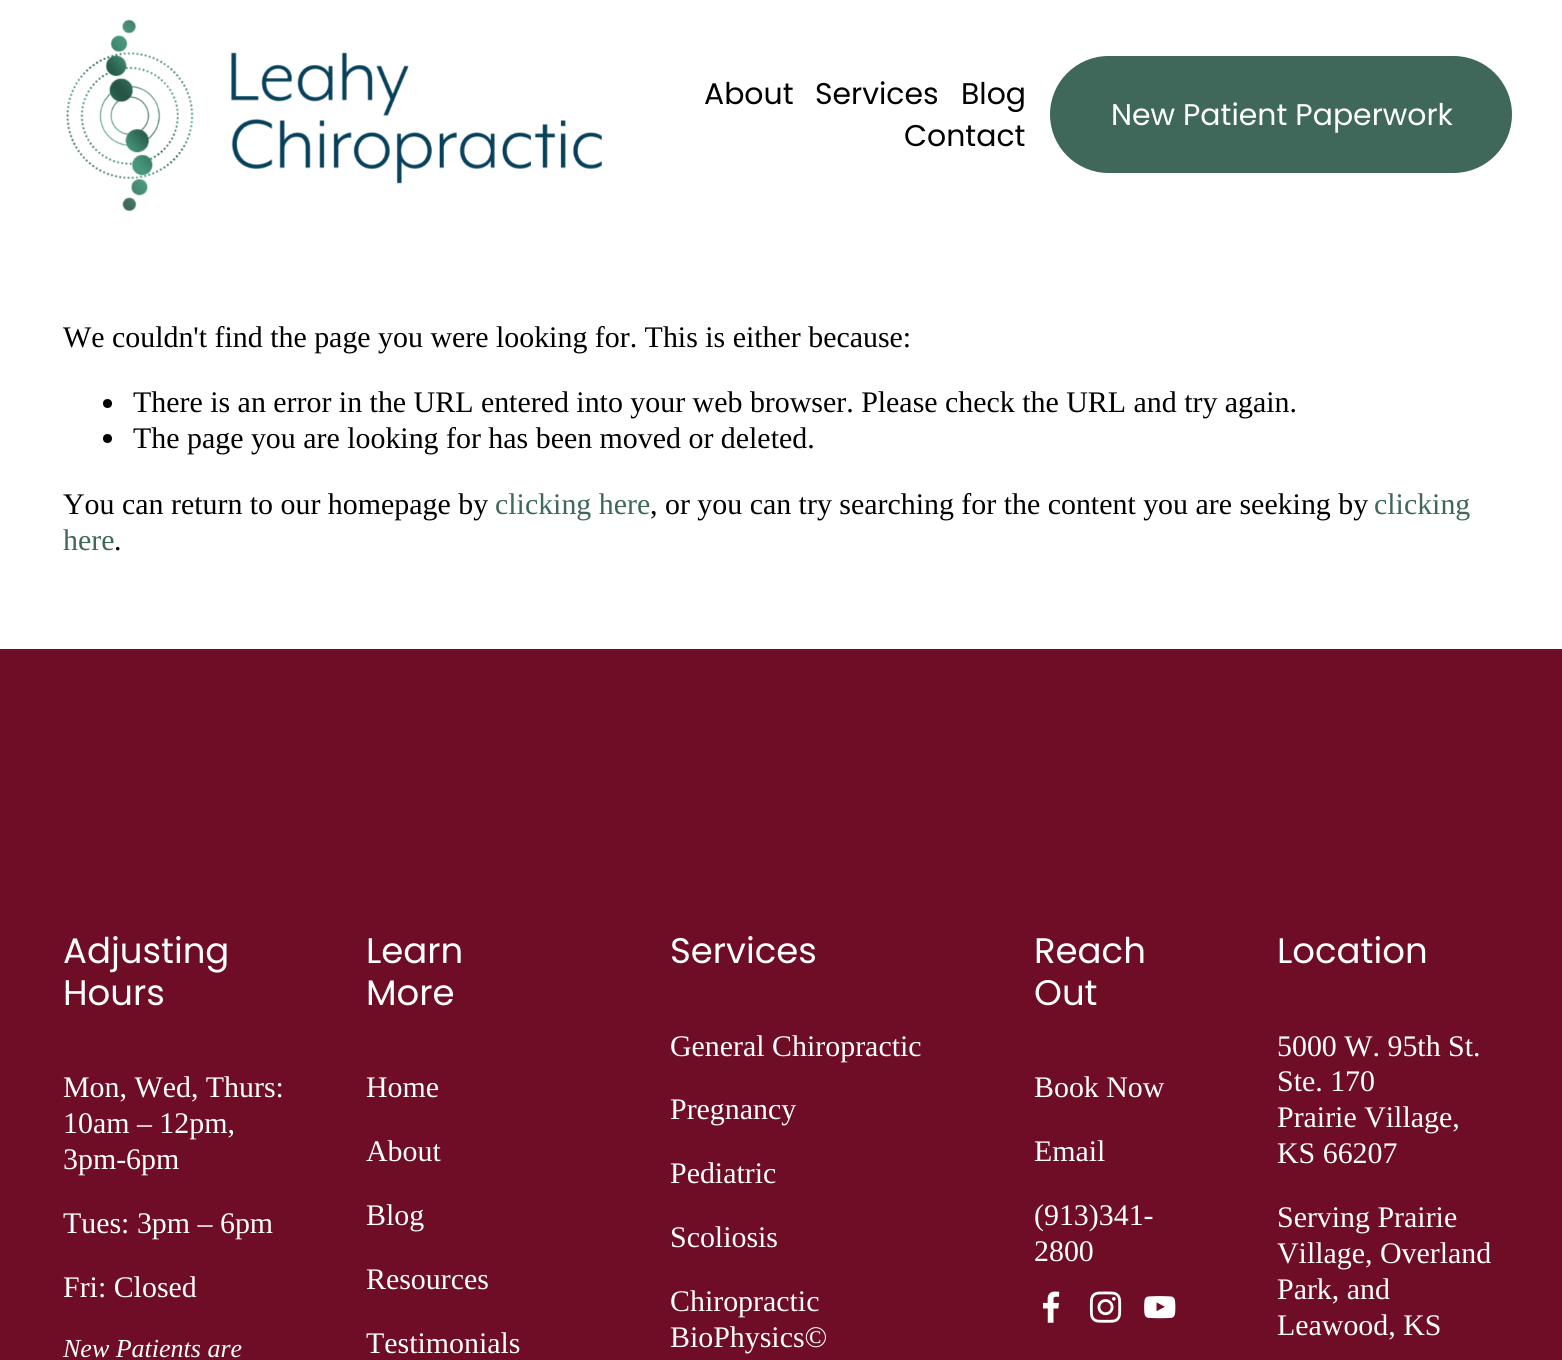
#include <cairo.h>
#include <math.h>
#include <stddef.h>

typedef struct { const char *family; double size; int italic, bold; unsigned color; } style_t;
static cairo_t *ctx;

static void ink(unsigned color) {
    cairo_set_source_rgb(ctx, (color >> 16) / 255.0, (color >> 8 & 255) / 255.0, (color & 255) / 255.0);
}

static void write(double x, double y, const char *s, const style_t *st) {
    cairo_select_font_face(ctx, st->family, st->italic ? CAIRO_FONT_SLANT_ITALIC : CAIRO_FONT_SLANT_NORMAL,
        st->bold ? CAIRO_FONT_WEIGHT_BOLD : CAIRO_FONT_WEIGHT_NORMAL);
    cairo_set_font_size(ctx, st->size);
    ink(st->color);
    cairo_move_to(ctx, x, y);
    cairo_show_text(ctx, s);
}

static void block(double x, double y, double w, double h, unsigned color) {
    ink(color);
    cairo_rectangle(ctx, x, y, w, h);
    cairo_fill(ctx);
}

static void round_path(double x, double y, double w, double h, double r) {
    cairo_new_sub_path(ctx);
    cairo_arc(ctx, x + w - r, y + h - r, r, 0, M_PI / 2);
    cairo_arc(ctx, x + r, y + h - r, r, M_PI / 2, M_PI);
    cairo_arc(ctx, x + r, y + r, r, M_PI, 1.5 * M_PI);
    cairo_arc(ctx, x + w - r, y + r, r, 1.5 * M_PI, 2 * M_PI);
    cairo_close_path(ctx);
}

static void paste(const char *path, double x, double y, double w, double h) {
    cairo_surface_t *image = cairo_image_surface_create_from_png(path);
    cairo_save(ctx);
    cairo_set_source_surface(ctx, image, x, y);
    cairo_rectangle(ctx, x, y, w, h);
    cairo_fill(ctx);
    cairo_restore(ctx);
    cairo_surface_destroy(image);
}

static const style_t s1 = {"Poppins", 29.9, 0, 0, 0x000000};
static const style_t s2 = {"Poppins", 29.9, 0, 0, 0xffffff};
static const style_t s3 = {"Liberation Serif", 29.9, 0, 0, 0x000000};
static const style_t s4 = {"Liberation Serif", 29.9, 0, 0, 0x3f685b};
static const style_t s5 = {"Poppins", 35.5, 0, 0, 0xffffff};
static const style_t s6 = {"Liberation Serif", 29.9, 0, 0, 0xffffff};
static const style_t s7 = {"Liberation Serif", 26, 1, 0, 0xffffff};

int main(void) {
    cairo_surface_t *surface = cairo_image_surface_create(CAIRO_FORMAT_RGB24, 1562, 1360);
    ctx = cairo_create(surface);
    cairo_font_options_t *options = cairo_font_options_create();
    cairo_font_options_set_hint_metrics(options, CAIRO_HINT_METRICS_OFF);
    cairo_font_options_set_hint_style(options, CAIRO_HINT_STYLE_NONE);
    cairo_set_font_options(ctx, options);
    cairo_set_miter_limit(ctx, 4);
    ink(0xffffff);
    cairo_paint(ctx);
    paste("pic1.png", 66, 19, 536, 193);
    write(704, 104, "About", &s1);
    write(815, 104, "Services", &s1);
    write(961, 104, "Blog", &s1);
    write(904, 146, "Contact", &s1);
    ink(0x3f685b);
    round_path(1050, 56, 462, 117, 58.5);
    cairo_fill(ctx);
    write(1111, 125, "New Patient Paperwork", &s2);
    write(63, 347, "We couldn't find the page you were looking for. This is either because:", &s3);
    cairo_new_path(ctx);
    cairo_arc(ctx, 107.5, 403.5, 4.5, 0, 2 * M_PI);
    cairo_fill(ctx);
    write(133, 412, "There is an error in the URL entered into your web browser. Please check the URL and try again.", &s3);
    cairo_new_path(ctx);
    cairo_arc(ctx, 107.5, 438.5, 4.5, 0, 2 * M_PI);
    cairo_fill(ctx);
    write(133, 448, "The page you are looking for has been moved or deleted.", &s3);
    write(63, 514, "You can return to our homepage by", &s3);
    write(495, 514, "clicking here", &s4);
    write(650, 514, ", or you can try searching for the content you are seeking by", &s3);
    write(1374, 514, "clicking", &s4);
    write(63, 550, "here", &s4);
    write(114, 550, ".", &s3);
    block(0, 649, 1562, 711, 0x6e0d25);
    write(63, 963, "Adjusting", &s5);
    write(63, 1005, "Hours", &s5);
    write(63, 1097, "Mon, Wed, Thurs:", &s6);
    write(63, 1133, "10am – 12pm,", &s6);
    write(63, 1169, "3pm-6pm", &s6);
    write(63, 1233, "Tues: 3pm – 6pm", &s6);
    write(63, 1297, "Fri: Closed", &s6);
    write(63, 1357, "New Patients are", &s7);
    write(366, 963, "Learn", &s5);
    write(366, 1005, "More", &s5);
    write(366, 1097, "Home", &s6);
    write(366, 1161, "About", &s6);
    write(366, 1225, "Blog", &s6);
    write(366, 1289, "Resources", &s6);
    write(366, 1353, "Testimonials", &s6);
    write(670, 963, "Services", &s5);
    write(670, 1056, "General Chiropractic", &s6);
    write(670, 1119, "Pregnancy", &s6);
    write(670, 1183, "Pediatric", &s6);
    write(670, 1247, "Scoliosis", &s6);
    write(670, 1311, "Chiropractic", &s6);
    write(670, 1347, "BioPhysics©", &s6);
    write(1034, 963, "Reach", &s5);
    write(1034, 1005, "Out", &s5);
    write(1034, 1097, "Book Now", &s6);
    write(1034, 1161, "Email", &s6);
    write(1034, 1225, "(913)341-", &s6);
    write(1034, 1261, "2800", &s6);
    write(1277, 963, "Location", &s5);
    write(1277, 1056, "5000 W. 95th St.", &s6);
    write(1277, 1091, "Ste. 170", &s6);
    write(1277, 1127, "Prairie Village,", &s6);
    write(1277, 1163, "KS 66207", &s6);
    write(1277, 1227, "Serving Prairie", &s6);
    write(1277, 1263, "Village, Overland", &s6);
    write(1277, 1299, "Park, and", &s6);
    write(1277, 1335, "Leawood, KS", &s6);
    paste("pic2.png", 1043, 1291, 17, 32);
    paste("pic3.png", 1089, 1291, 33, 32);
    paste("pic4.png", 1144, 1296, 32, 23);
    cairo_surface_write_to_png(surface, "screenshot.png");
    cairo_font_options_destroy(options);
    cairo_destroy(ctx);
    cairo_surface_destroy(surface);
    return 0;
}
